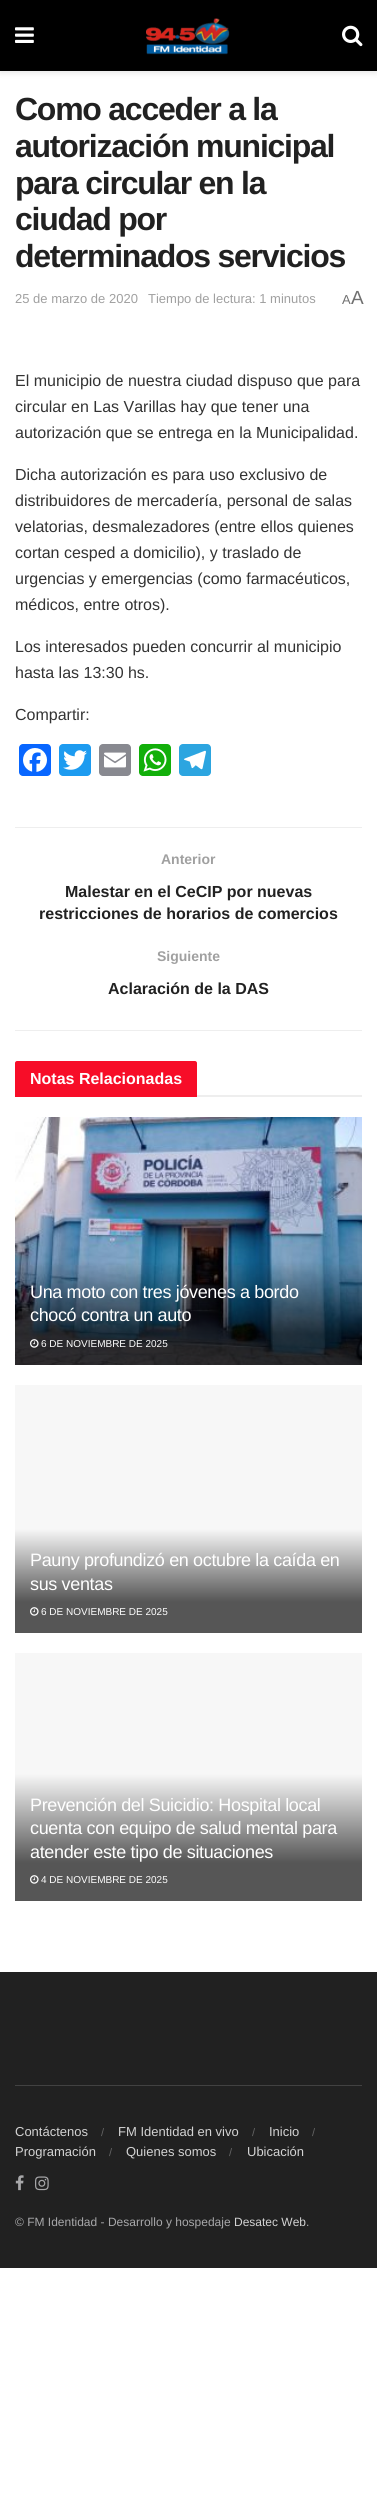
#include <cairo.h>
#include <math.h>
#include <stddef.h>

typedef struct { const char *family; double size; int italic, bold; unsigned color; } style_t;
static cairo_t *ctx;

static void ink(unsigned color) {
    cairo_set_source_rgb(ctx, (color >> 16) / 255.0, (color >> 8 & 255) / 255.0, (color & 255) / 255.0);
}

static void write(double x, double y, const char *s, const style_t *st) {
    cairo_select_font_face(ctx, st->family, st->italic ? CAIRO_FONT_SLANT_ITALIC : CAIRO_FONT_SLANT_NORMAL,
        st->bold ? CAIRO_FONT_WEIGHT_BOLD : CAIRO_FONT_WEIGHT_NORMAL);
    cairo_set_font_size(ctx, st->size);
    ink(st->color);
    cairo_move_to(ctx, x, y);
    cairo_show_text(ctx, s);
}

static void write_spaced(double x, double y, const char *s, double letter, double word) {
    cairo_move_to(ctx, x, y);
    while (*s) {
        char ch[5] = {0};
        int n = 0;
        do ch[n++] = *s++; while ((*s & 0xC0) == 0x80);
        cairo_show_text(ctx, ch);
        cairo_rel_move_to(ctx, letter + word * (*ch == ' '), 0);
    }
}

static void block(double x, double y, double w, double h, unsigned color) {
    ink(color);
    cairo_rectangle(ctx, x, y, w, h);
    cairo_fill(ctx);
}

static void round_path(double x, double y, double w, double h, double r) {
    cairo_new_sub_path(ctx);
    cairo_arc(ctx, x + w - r, y + h - r, r, 0, M_PI / 2);
    cairo_arc(ctx, x + r, y + h - r, r, M_PI / 2, M_PI);
    cairo_arc(ctx, x + r, y + r, r, M_PI, 1.5 * M_PI);
    cairo_arc(ctx, x + w - r, y + r, r, 1.5 * M_PI, 2 * M_PI);
    cairo_close_path(ctx);
}

static void blur_box(double x, double y, double w, double h, double r, double blur, double alpha) {
    cairo_push_group_with_content(ctx, CAIRO_CONTENT_ALPHA);
    cairo_set_operator(ctx, CAIRO_OPERATOR_SOURCE);
    for (int i = 15; i >= -15 && fmin(w, h) + blur * i / 3 > 0; i -= 2) {
        double e = blur * i / 6;
        cairo_set_source_rgba(ctx, 0, 0, 0, alpha * erfc((i - 1) / 8.5) / 2);
        round_path(x - e, y - e, w + 2 * e, h + 2 * e, fmax(0, fmin(r + e + blur * .6, fmin(w, h) / 2 + e)));
        cairo_fill(ctx);
    }
    cairo_pattern_t *soft = cairo_pop_group(ctx);
    cairo_mask(ctx, soft);
    cairo_pattern_destroy(soft);
}

static void paste(const char *path, double x, double y, double w, double h) {
    cairo_surface_t *image = cairo_image_surface_create_from_png(path);
    cairo_save(ctx);
    cairo_set_source_surface(ctx, image, x, y);
    cairo_rectangle(ctx, x, y, w, h);
    cairo_fill(ctx);
    cairo_restore(ctx);
    cairo_surface_destroy(image);
}

static const style_t s1 = {"Liberation Sans", 13, 0, 0, 0xa0a0a0};
static const style_t s2 = {"Liberation Sans", 13, 0, 0, 0x707070};
static const style_t s3 = {"Liberation Sans", 19, 0, 0, 0x707070};
static const style_t s4 = {"Liberation Sans", 16, 0, 0, 0x333333};
static const style_t s5 = {"Liberation Sans", 14, 0, 1, 0xa0a0a0};
static const style_t s6 = {"Liberation Sans", 16, 0, 1, 0x212121};
static const style_t s7 = {"Liberation Sans", 16, 0, 1, 0xffffff};
static const style_t s8 = {"Liberation Sans", 10, 0, 0, 0xffffff};
static const style_t s9 = {"Liberation Sans", 13, 0, 0, 0xd3d3d3};
static const style_t s10 = {"Liberation Sans", 11, 0, 0, 0x646464};
static const style_t s11 = {"Liberation Sans", 12, 0, 0, 0xa8a8aa};
static const style_t s12 = {"Liberation Sans", 12, 0, 0, 0xd3d3d3};

int main(void) {
    cairo_surface_t *surface = cairo_image_surface_create(CAIRO_FORMAT_RGB24, 377, 2499);
    ctx = cairo_create(surface);
    cairo_font_options_t *options = cairo_font_options_create();
    cairo_font_options_set_hint_metrics(options, CAIRO_HINT_METRICS_OFF);
    cairo_font_options_set_hint_style(options, CAIRO_HINT_STYLE_NONE);
    cairo_set_font_options(ctx, options);
    cairo_set_miter_limit(ctx, 4);
    cairo_pattern_t *gradient;
    ink(0xffffff);
    cairo_paint(ctx);
    ink(0x000000);
    blur_box(0, 2, 377, 71, 0, 3, 0.1);
    block(0, 0, 377, 71, 0x000000);
    paste("pic1.png", 15, 27, 19, 16);
    paste("pic2.png", 146, 18, 84, 37);
    paste("pic3.png", 342, 25, 21, 22);
    cairo_select_font_face(ctx, "Liberation Sans", CAIRO_FONT_SLANT_NORMAL, CAIRO_FONT_WEIGHT_BOLD);
    cairo_set_font_size(ctx, 32);
    ink(0x212121);
    write_spaced(15, 120, "Como acceder a la", -1.25, 0);
    write_spaced(15, 157, "autorización municipal", -1.25, 0);
    write_spaced(15, 194, "para circular en la", -1.25, 0);
    write_spaced(15, 230, "ciudad por", -1.25, 0);
    write_spaced(15, 267, "determinados servicios", -1.25, 0);
    write(15, 303, "25 de marzo de 2020", &s1);
    write(148, 303, "Tiempo de lectura: 1 minutos", &s1);
    write(342, 304, "A", &s2);
    write(351, 304, "A", &s3);
    write(15, 386, "El municipio de nuestra ciudad dispuso que para", &s4);
    write(15, 412, "circular en Las Varillas hay que tener una", &s4);
    write(15, 438, "autorización que se entrega en la Municipalidad.", &s4);
    write(15, 480, "Dicha autorización es para uso exclusivo de", &s4);
    write(15, 506, "distribuidores de mercadería, personal de salas", &s4);
    write(15, 532, "velatorias, desmalezadores (entre ellos quienes", &s4);
    write(15, 558, "cortan cesped a domicilio), y traslado de", &s4);
    write(15, 584, "urgencias y emergencias (como farmacéuticos,", &s4);
    write(15, 610, "médicos, entre otros).", &s4);
    write(15, 652, "Los interesados pueden concurrir al municipio", &s4);
    write(15, 678, "hasta las 13:30 hs.", &s4);
    write(15, 720, "Compartir:", &s4);
    ink(0x0866ff);
    round_path(19, 744, 32, 32, 4);
    cairo_fill(ctx);
    paste("pic4.png", 23, 748, 24, 24);
    ink(0x1d9bf0);
    round_path(59, 744, 32, 32, 4);
    cairo_fill(ctx);
    paste("pic5.png", 63, 750, 24, 20);
    ink(0x888990);
    round_path(99, 744, 32, 32, 4);
    cairo_fill(ctx);
    paste("pic6.png", 104, 752, 22, 16);
    ink(0x12af0a);
    round_path(139, 744, 32, 32, 4);
    cairo_fill(ctx);
    paste("pic7.png", 143, 748, 24, 24);
    ink(0x2ca5e0);
    round_path(179, 744, 32, 32, 4);
    cairo_fill(ctx);
    paste("pic8.png", 184, 750, 22, 20);
    block(15, 827, 347, 1, 0xeeeeee);
    block(15, 1030, 347, 1, 0xeeeeee);
    write(161, 864, "Anterior", &s5);
    write(65, 897, "Malestar en el CeCIP por nuevas", &s6);
    write(39, 919, "restricciones de horarios de comercios", &s6);
    write(157, 961, "Siguiente", &s5);
    write(108, 994, "Aclaración de la DAS", &s6);
    block(197, 1095, 165, 2, 0xeeeeee);
    ink(0xf70d28);
    cairo_new_path(ctx);
    cairo_move_to(ctx, 17, 1061);
    cairo_line_to(ctx, 195, 1061);
    cairo_curve_to(ctx, 196, 1061, 197, 1062, 197, 1063);
    cairo_line_to(ctx, 197, 1097);
    cairo_line_to(ctx, 15, 1097);
    cairo_line_to(ctx, 15, 1063);
    cairo_curve_to(ctx, 15, 1062, 16, 1061, 17, 1061);
    cairo_close_path(ctx);
    cairo_fill(ctx);
    write(30, 1084, "Notas Relacionadas", &s7);
    paste("pic9.png", 15, 1117, 347, 248);
    cairo_select_font_face(ctx, "Liberation Sans", CAIRO_FONT_SLANT_NORMAL, CAIRO_FONT_WEIGHT_NORMAL);
    cairo_set_font_size(ctx, 18);
    write_spaced(30, 1298, "Una moto con tres jóvenes a bordo", -0.35, 0);
    write_spaced(30, 1321, "chocó contra un auto", -0.35, 0);
    paste("pic10.png", 30, 1339, 9, 9);
    write(41, 1347, "6 DE NOVIEMBRE DE 2025", &s8);
    block(15, 1385, 347, 144, 0xf7f7f7);
    gradient = cairo_pattern_create_linear(189, 1529, 189, 1633);
    cairo_pattern_add_color_stop_rgba(gradient, 0, 0.969, 0.969, 0.969, 1);
    cairo_pattern_add_color_stop_rgba(gradient, 0.7, 0.337, 0.337, 0.337, 1);
    cairo_set_source(ctx, gradient);
    cairo_pattern_destroy(gradient);
    cairo_rectangle(ctx, 15, 1529, 347, 104);
    cairo_fill(ctx);
    cairo_set_font_size(ctx, 18);
    ink(0xffffff);
    write_spaced(30, 1566, "Pauny profundizó en octubre la caída en", -0.35, 0);
    write_spaced(30, 1590, "sus ventas", -0.35, 0);
    paste("pic11.png", 30, 1607, 9, 9);
    write(41, 1615, "6 DE NOVIEMBRE DE 2025", &s8);
    block(15, 1653, 347, 121, 0xf7f7f7);
    gradient = cairo_pattern_create_linear(189, 1774, 189, 1901);
    cairo_pattern_add_color_stop_rgba(gradient, 0, 0.969, 0.969, 0.969, 1);
    cairo_pattern_add_color_stop_rgba(gradient, 0.7, 0.337, 0.337, 0.337, 1);
    cairo_set_source(ctx, gradient);
    cairo_pattern_destroy(gradient);
    cairo_rectangle(ctx, 15, 1774, 347, 127);
    cairo_fill(ctx);
    cairo_set_font_size(ctx, 18);
    ink(0xffffff);
    write_spaced(30, 1811, "Prevención del Suicidio: Hospital local", -0.35, 0);
    write_spaced(30, 1834, "cuenta con equipo de salud mental para", -0.35, 0);
    write_spaced(30, 1858, "atender este tipo de situaciones", -0.35, 0);
    paste("pic11.png", 30, 1875, 9, 9);
    write(41, 1883, "4 DE NOVIEMBRE DE 2025", &s8);
    block(0, 1972, 377, 296, 0x212121);
    block(15, 2085, 347, 1, 0x424242);
    write(15, 2136, "Contáctenos", &s9);
    write(101, 2136, "/", &s10);
    write(118, 2136, "FM Identidad en vivo", &s9);
    write(252, 2136, "/", &s10);
    write(269, 2136, "Inicio", &s9);
    write(312, 2136, "/", &s10);
    write(15, 2156, "Programación", &s9);
    write(109, 2156, "/", &s10);
    write(126, 2156, "Quienes somos", &s9);
    write(229, 2156, "/", &s10);
    write(247, 2156, "Ubicación", &s9);
    paste("pic12.png", 15, 2175, 9, 16);
    paste("pic13.png", 35, 2176, 14, 15);
    write(15, 2226, "© FM Identidad - Desarrollo y hospedaje", &s11);
    write(234, 2226, "Desatec Web", &s12);
    write(306, 2226, ".", &s11);
    cairo_surface_write_to_png(surface, "screenshot.png");
    cairo_font_options_destroy(options);
    cairo_destroy(ctx);
    cairo_surface_destroy(surface);
    return 0;
}
